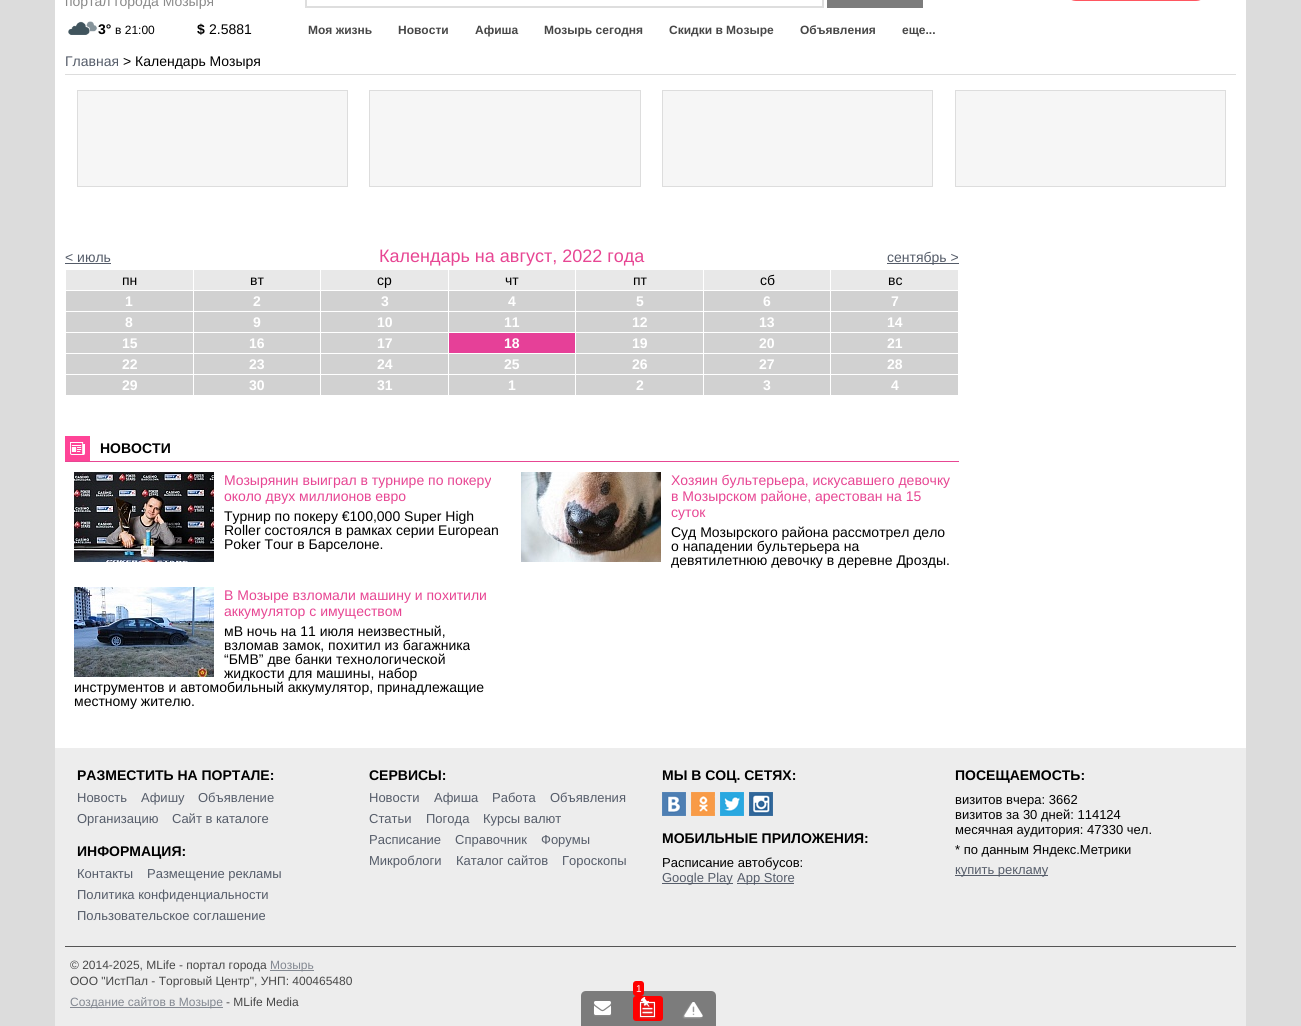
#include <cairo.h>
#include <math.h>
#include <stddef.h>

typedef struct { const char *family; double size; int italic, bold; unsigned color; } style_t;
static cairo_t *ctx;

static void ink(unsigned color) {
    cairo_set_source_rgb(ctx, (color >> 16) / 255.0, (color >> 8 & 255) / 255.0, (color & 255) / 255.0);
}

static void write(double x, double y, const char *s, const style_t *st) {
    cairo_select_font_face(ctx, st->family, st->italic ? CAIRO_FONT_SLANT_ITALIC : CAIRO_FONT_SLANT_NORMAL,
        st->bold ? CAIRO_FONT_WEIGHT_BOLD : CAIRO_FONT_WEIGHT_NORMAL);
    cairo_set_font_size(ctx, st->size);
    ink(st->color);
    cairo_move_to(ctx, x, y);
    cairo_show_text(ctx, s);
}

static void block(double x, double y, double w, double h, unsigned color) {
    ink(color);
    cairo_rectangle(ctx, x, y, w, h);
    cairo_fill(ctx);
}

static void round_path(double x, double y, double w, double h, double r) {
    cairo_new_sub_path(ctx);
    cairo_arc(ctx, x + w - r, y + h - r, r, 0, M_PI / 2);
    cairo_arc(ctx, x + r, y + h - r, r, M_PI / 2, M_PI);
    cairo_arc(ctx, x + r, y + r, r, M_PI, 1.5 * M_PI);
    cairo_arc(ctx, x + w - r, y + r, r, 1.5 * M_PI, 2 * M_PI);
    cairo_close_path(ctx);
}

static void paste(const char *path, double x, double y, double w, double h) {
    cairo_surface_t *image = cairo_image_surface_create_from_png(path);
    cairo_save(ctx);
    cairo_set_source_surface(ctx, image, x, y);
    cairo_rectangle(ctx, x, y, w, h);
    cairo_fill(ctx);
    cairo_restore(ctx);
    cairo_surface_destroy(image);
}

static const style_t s1 = {"Liberation Sans", 14, 0, 0, 0x8a8a8a};
static const style_t s2 = {"Liberation Sans", 14, 0, 1, 0x000000};
static const style_t s3 = {"Liberation Sans", 12, 0, 0, 0x000000};
static const style_t s4 = {"Liberation Sans", 14, 0, 0, 0x000000};
static const style_t s5 = {"Liberation Sans", 12, 0, 1, 0x474747};
static const style_t s6 = {"Liberation Sans", 10, 0, 0, 0xffffff};
static const style_t s7 = {"Liberation Sans", 14, 0, 0, 0x555c69};
static const style_t s8 = {"Liberation Sans", 18, 0, 0, 0xe74693};
static const style_t s9 = {"Liberation Sans", 14, 0, 1, 0xffffff};
static const style_t s10 = {"Liberation Sans", 14, 0, 0, 0xe74693};
static const style_t s11 = {"Liberation Sans", 13, 0, 0, 0x555c69};
static const style_t s12 = {"Liberation Sans", 13, 0, 0, 0x000000};
static const style_t s13 = {"Liberation Sans", 12, 0, 0, 0x474747};
static const style_t s14 = {"Liberation Sans", 12, 0, 0, 0x838891};

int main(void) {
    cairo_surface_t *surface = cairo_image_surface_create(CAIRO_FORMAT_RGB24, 1301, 1026);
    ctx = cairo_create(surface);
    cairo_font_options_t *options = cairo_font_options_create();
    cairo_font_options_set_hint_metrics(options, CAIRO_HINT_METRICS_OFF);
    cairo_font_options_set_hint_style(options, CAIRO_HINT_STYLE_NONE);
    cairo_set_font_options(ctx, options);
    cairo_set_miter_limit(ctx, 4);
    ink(0xdcdcdc);
    cairo_paint(ctx);
    block(55, 0, 1191, 748, 0xffffff);
    write(65, 6, "портал города Мозыря", &s1);
    paste("pic1.png", 68, 21, 29, 14);
    write(98, 34, "3°", &s2);
    write(115, 34, "в 21:00", &s3);
    write(197, 34, "$", &s2);
    write(209, 34, "2.5881", &s4);
    cairo_rectangle(ctx, 306, -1, 517, 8);
    ink(0xdedede);
    cairo_stroke(ctx);
    block(827, 0, 96, 8, 0x7c7c7c);
    write(308, 34, "Моя жизнь", &s5);
    write(398, 34, "Новости", &s5);
    write(475, 34, "Афиша", &s5);
    write(544, 34, "Мозырь сегодня", &s5);
    write(669, 34, "Скидки в Мозыре", &s5);
    write(800, 34, "Объявления", &s5);
    write(902, 34, "еще...", &s5);
    ink(0xff5660);
    round_path(1065, -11, 142, 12, 11);
    cairo_fill(ctx);
    block(55, 748, 1191, 278, 0xededed);
    ink(0x7c7c7c);
    cairo_new_path(ctx);
    cairo_move_to(ctx, 586, 991);
    cairo_line_to(ctx, 711, 991);
    cairo_curve_to(ctx, 714, 991, 716, 993, 716, 996);
    cairo_line_to(ctx, 716, 1026);
    cairo_line_to(ctx, 581, 1026);
    cairo_line_to(ctx, 581, 996);
    cairo_curve_to(ctx, 581, 993, 583, 991, 586, 991);
    cairo_close_path(ctx);
    cairo_fill(ctx);
    ink(0xff0000);
    round_path(633, 996, 30, 25, 3);
    cairo_fill(ctx);
    paste("pic2.png", 639, 997, 17, 22);
    round_path(633, 981, 11, 15, 3);
    cairo_fill(ctx);
    write(636, 992, "1", &s6);
    paste("pic3.png", 593, 1001, 19, 16);
    paste("pic4.png", 682, 1002, 21, 17);
    block(65, 74, 1171, 1, 0xdddddd);
    write(65, 66, "Главная", &s7);
    write(123, 66, "> Календарь Мозыря", &s4);
    cairo_rectangle(ctx, 77.5, 90.5, 270, 96);
    ink(0xdddddd);
    cairo_set_line_width(ctx, 1);
    cairo_stroke(ctx);
    block(78, 91, 269, 95, 0xf6f6f6);
    cairo_rectangle(ctx, 369.5, 90.5, 271, 96);
    ink(0xdddddd);
    cairo_stroke(ctx);
    block(370, 91, 270, 95, 0xf6f6f6);
    cairo_rectangle(ctx, 662.5, 90.5, 270, 96);
    ink(0xdddddd);
    cairo_stroke(ctx);
    block(663, 91, 269, 95, 0xf6f6f6);
    cairo_rectangle(ctx, 955.5, 90.5, 270, 96);
    ink(0xdddddd);
    cairo_stroke(ctx);
    block(956, 91, 269, 95, 0xf6f6f6);
    write(65, 262, "< июль", &s7);
    block(65, 263, 46, 1, 0x555c69);
    write(379, 262, "Календарь на август, 2022 года", &s8);
    block(887, 263, 72, 1, 0x555c69);
    write(887, 262, "сентябрь >", &s7);
    block(66, 270, 127, 20, 0xe8e8e8);
    write(122, 285, "пн", &s4);
    block(194, 270, 126, 20, 0xe8e8e8);
    write(250, 285, "вт", &s4);
    block(321, 270, 127, 20, 0xe8e8e8);
    write(377, 285, "ср", &s4);
    block(449, 270, 126, 20, 0xe8e8e8);
    write(505, 285, "чт", &s4);
    block(576, 270, 127, 20, 0xe8e8e8);
    write(633, 285, "пт", &s4);
    block(704, 270, 126, 20, 0xe8e8e8);
    write(760, 285, "сб", &s4);
    block(831, 270, 127, 20, 0xe8e8e8);
    write(888, 285, "вс", &s4);
    block(66, 291, 127, 20, 0xd1d1d1);
    write(125, 306, "1", &s9);
    block(194, 291, 126, 20, 0xd1d1d1);
    write(253, 306, "2", &s9);
    block(321, 291, 127, 20, 0xd1d1d1);
    write(381, 306, "3", &s9);
    block(449, 291, 126, 20, 0xd1d1d1);
    write(508, 306, "4", &s9);
    block(576, 291, 127, 20, 0xd1d1d1);
    write(636, 306, "5", &s9);
    block(704, 291, 126, 20, 0xd1d1d1);
    write(763, 306, "6", &s9);
    block(831, 291, 127, 20, 0xd1d1d1);
    write(891, 306, "7", &s9);
    block(66, 312, 127, 20, 0xd1d1d1);
    write(125, 327, "8", &s9);
    block(194, 312, 126, 20, 0xd1d1d1);
    write(253, 327, "9", &s9);
    block(321, 312, 127, 20, 0xd1d1d1);
    write(377, 327, "10", &s9);
    block(449, 312, 126, 20, 0xd1d1d1);
    write(504, 327, "11", &s9);
    block(576, 312, 127, 20, 0xd1d1d1);
    write(632, 327, "12", &s9);
    block(704, 312, 126, 20, 0xd1d1d1);
    write(759, 327, "13", &s9);
    block(831, 312, 127, 20, 0xd1d1d1);
    write(887, 327, "14", &s9);
    block(66, 333, 127, 20, 0xd1d1d1);
    write(122, 348, "15", &s9);
    block(194, 333, 126, 20, 0xd1d1d1);
    write(249, 348, "16", &s9);
    block(321, 333, 127, 20, 0xd1d1d1);
    write(377, 348, "17", &s9);
    block(449, 333, 126, 20, 0xe64098);
    write(504, 348, "18", &s9);
    block(576, 333, 127, 20, 0xd1d1d1);
    write(632, 348, "19", &s9);
    block(704, 333, 126, 20, 0xd1d1d1);
    write(759, 348, "20", &s9);
    block(831, 333, 127, 20, 0xd1d1d1);
    write(887, 348, "21", &s9);
    block(66, 354, 127, 20, 0xd1d1d1);
    write(122, 369, "22", &s9);
    block(194, 354, 126, 20, 0xd1d1d1);
    write(249, 369, "23", &s9);
    block(321, 354, 127, 20, 0xd1d1d1);
    write(377, 369, "24", &s9);
    block(449, 354, 126, 20, 0xd1d1d1);
    write(504, 369, "25", &s9);
    block(576, 354, 127, 20, 0xd1d1d1);
    write(632, 369, "26", &s9);
    block(704, 354, 126, 20, 0xd1d1d1);
    write(759, 369, "27", &s9);
    block(831, 354, 127, 20, 0xd1d1d1);
    write(887, 369, "28", &s9);
    block(66, 375, 127, 20, 0xd1d1d1);
    write(122, 390, "29", &s9);
    block(194, 375, 126, 20, 0xd1d1d1);
    write(249, 390, "30", &s9);
    block(321, 375, 127, 20, 0xd1d1d1);
    write(377, 390, "31", &s9);
    block(449, 375, 126, 20, 0xd1d1d1);
    write(508, 390, "1", &s9);
    block(576, 375, 127, 20, 0xd1d1d1);
    write(636, 390, "2", &s9);
    block(704, 375, 126, 20, 0xd1d1d1);
    write(763, 390, "3", &s9);
    block(831, 375, 127, 20, 0xd1d1d1);
    write(891, 390, "4", &s9);
    block(65, 461, 894, 1, 0xe74693);
    paste("pic5.png", 65, 436, 25, 25);
    write(100, 453, "НОВОСТИ", &s2);
    paste("pic6.png", 74, 472, 140, 90);
    write(224, 485, "Мозырянин выиграл в турнире по покеру", &s10);
    write(224, 501, "около двух миллионов евро", &s10);
    write(224, 521, "Турнир по покеру €100,000 Super High", &s4);
    write(224, 535, "Roller состоялся в рамках серии European", &s4);
    write(224, 549, "Poker Tour в Барселоне.", &s4);
    paste("pic7.png", 521, 472, 140, 90);
    write(671, 485, "Хозяин бультерьера, искусавшего девочку", &s10);
    write(671, 501, "в Мозырском районе, арестован на 15", &s10);
    write(671, 517, "суток", &s10);
    write(671, 537, "Суд Мозырского района рассмотрел дело", &s4);
    write(671, 551, "о нападении бультерьера на", &s4);
    write(671, 565, "девятилетнюю девочку в деревне Дрозды.", &s4);
    paste("pic8.png", 74, 587, 140, 90);
    write(224, 600, "В Мозыре взломали машину и похитили", &s10);
    write(224, 616, "аккумулятор с имуществом", &s10);
    write(224, 636, "мВ ночь на 11 июля неизвестный,", &s4);
    write(224, 650, "взломав замок, похитил из багажника", &s4);
    write(224, 664, "“БМВ” две банки технологической", &s4);
    write(224, 678, "жидкости для машины, набор", &s4);
    write(74, 692, "инструментов и автомобильный аккумулятор, принадлежащие", &s4);
    write(74, 706, "местному жителю.", &s4);
    write(77, 780, "РАЗМЕСТИТЬ НА ПОРТАЛЕ:", &s2);
    write(77, 802, "Новость", &s11);
    write(141, 802, "Афишу", &s11);
    write(198, 802, "Объявление", &s11);
    write(77, 823, "Организацию", &s11);
    write(172, 823, "Сайт в каталоге", &s11);
    write(77, 856, "ИНФОРМАЦИЯ:", &s2);
    write(77, 878, "Контакты", &s11);
    write(147, 878, "Размещение рекламы", &s11);
    write(77, 899, "Политика конфиденциальности", &s11);
    write(77, 920, "Пользовательское соглашение", &s11);
    write(369, 780, "СЕРВИСЫ:", &s2);
    write(369, 802, "Новости", &s11);
    write(434, 802, "Афиша", &s11);
    write(492, 802, "Работа", &s11);
    write(550, 802, "Объявления", &s11);
    write(369, 823, "Статьи", &s11);
    write(426, 823, "Погода", &s11);
    write(483, 823, "Курсы валют", &s11);
    write(369, 844, "Расписание", &s11);
    write(455, 844, "Справочник", &s11);
    write(541, 844, "Форумы", &s11);
    write(369, 865, "Микроблоги", &s11);
    write(456, 865, "Каталог сайтов", &s11);
    write(562, 865, "Гороскопы", &s11);
    write(662, 780, "МЫ В СОЦ. СЕТЯХ:", &s2);
    paste("pic9.png", 662, 792, 24, 24);
    paste("pic10.png", 691, 792, 24, 24);
    paste("pic11.png", 720, 792, 24, 24);
    paste("pic12.png", 749, 792, 24, 24);
    write(662, 843, "МОБИЛЬНЫЕ ПРИЛОЖЕНИЯ:", &s2);
    write(662, 867, "Расписание автобусов:", &s12);
    block(662, 883, 71, 1, 0x555c69);
    write(662, 882, "Google Play", &s11);
    block(737, 883, 57, 1, 0x555c69);
    write(737, 882, "App Store", &s11);
    write(955, 780, "ПОСЕЩАЕМОСТЬ:", &s2);
    write(955, 804, "визитов вчера: 3662", &s12);
    write(955, 819, "визитов за 30 дней: 114124", &s12);
    write(955, 834, "месячная аудитория: 47330 чел.", &s12);
    write(955, 854, "* по данным Яндекс.Метрики", &s12);
    block(955, 875, 93, 1, 0x555c69);
    write(955, 874, "купить рекламу", &s11);
    block(65, 946, 1171, 1, 0x555555);
    write(70, 969, "© 2014-2025, MLife - портал города", &s13);
    block(270, 970, 44, 1, 0x838891);
    write(270, 969, "Мозырь", &s14);
    write(70, 985, "ООО \"ИстПал - Торговый Центр\", УНП: 400465480", &s13);
    block(70, 1007, 153, 1, 0x838891);
    write(70, 1006, "Создание сайтов в Мозыре", &s14);
    write(226, 1006, "- MLife Media", &s13);
    cairo_surface_write_to_png(surface, "screenshot.png");
    cairo_font_options_destroy(options);
    cairo_destroy(ctx);
    cairo_surface_destroy(surface);
    return 0;
}
